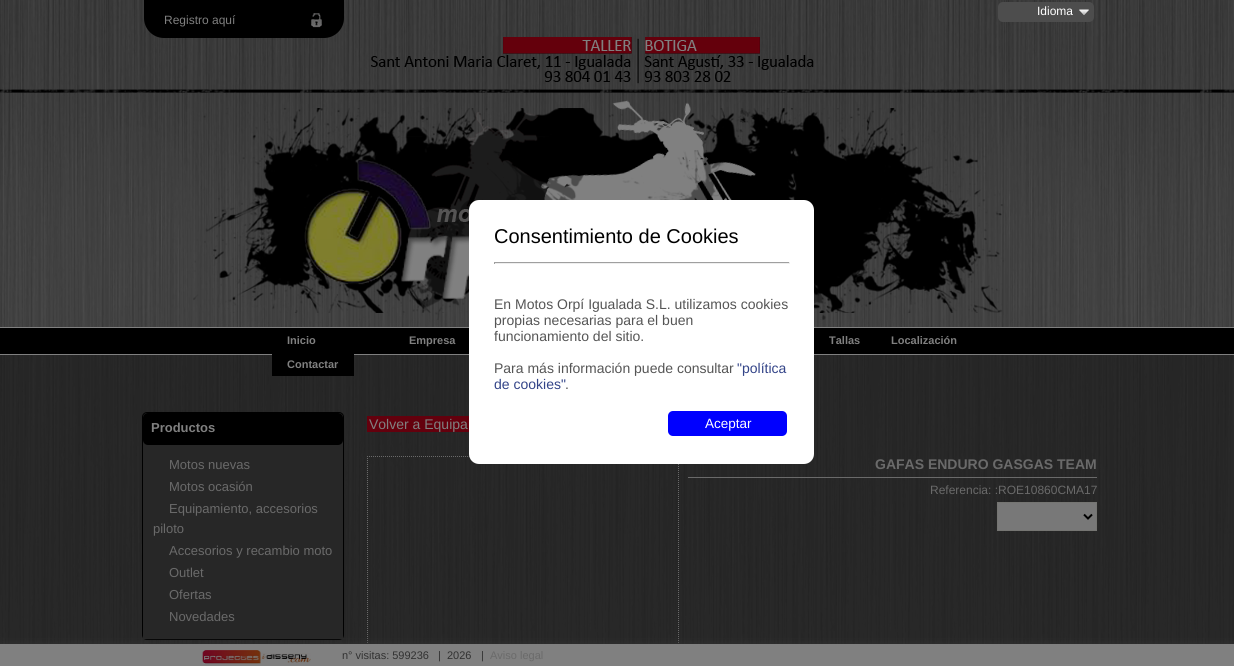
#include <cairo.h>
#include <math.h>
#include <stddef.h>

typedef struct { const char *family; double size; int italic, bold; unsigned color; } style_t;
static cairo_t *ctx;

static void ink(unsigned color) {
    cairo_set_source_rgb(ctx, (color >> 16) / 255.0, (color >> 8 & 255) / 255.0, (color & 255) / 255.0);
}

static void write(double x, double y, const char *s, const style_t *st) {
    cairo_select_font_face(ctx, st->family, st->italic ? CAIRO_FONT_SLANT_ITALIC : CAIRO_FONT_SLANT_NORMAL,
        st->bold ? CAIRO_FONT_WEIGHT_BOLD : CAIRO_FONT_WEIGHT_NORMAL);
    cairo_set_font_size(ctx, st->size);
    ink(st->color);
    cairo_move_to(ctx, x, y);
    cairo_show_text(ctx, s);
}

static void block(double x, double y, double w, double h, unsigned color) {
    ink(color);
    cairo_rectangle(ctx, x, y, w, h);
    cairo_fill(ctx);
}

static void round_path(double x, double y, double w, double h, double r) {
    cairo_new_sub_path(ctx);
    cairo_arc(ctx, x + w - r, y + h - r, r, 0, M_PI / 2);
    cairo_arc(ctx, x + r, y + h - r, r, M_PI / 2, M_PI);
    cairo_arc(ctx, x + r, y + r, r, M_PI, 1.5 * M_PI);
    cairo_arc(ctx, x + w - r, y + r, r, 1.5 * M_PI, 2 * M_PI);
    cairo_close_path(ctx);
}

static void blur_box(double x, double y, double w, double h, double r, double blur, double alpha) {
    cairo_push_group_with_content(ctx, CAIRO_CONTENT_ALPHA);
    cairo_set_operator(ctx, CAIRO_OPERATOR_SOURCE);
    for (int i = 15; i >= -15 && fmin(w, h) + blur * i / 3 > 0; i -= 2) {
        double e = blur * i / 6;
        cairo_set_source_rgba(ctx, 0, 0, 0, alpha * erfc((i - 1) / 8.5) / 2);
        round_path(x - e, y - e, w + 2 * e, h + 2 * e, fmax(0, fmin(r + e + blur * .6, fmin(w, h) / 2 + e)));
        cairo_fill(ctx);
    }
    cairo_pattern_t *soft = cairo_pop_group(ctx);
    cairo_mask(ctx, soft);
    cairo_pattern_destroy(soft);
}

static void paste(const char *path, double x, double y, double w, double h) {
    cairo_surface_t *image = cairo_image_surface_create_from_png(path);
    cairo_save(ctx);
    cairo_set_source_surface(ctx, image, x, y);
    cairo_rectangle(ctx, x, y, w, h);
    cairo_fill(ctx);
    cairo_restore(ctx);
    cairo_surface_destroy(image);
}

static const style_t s1 = {"Liberation Sans", 12, 0, 0, 0xffffff};
static const style_t s2 = {"Liberation Sans", 12, 0, 0, 0x808080};
static const style_t s3 = {"Liberation Sans", 11, 0, 1, 0x808080};
static const style_t s4 = {"Liberation Sans", 13, 0, 1, 0x808080};
static const style_t s5 = {"Liberation Sans", 13, 0, 0, 0x6a6a6a};
static const style_t s6 = {"Liberation Sans", 14, 0, 0, 0x808080};
static const style_t s7 = {"Liberation Sans", 14, 0, 1, 0x6a6a6a};
static const style_t s8 = {"Liberation Sans", 12, 0, 0, 0x6a6a6a};
static const style_t s9 = {"Liberation Sans", 20, 0, 0, 0x000000};
static const style_t s10 = {"Liberation Sans", 14, 0, 0, 0x555555};
static const style_t s11 = {"Liberation Sans", 14, 0, 0, 0x334488};
static const style_t s12 = {"Liberation Sans", 13.5, 0, 0, 0xffffff};
static const style_t s13 = {"Liberation Sans", 11, 0, 0, 0x313131};
static const style_t s14 = {"Liberation Sans", 11, 0, 0, 0x6a6a6a};

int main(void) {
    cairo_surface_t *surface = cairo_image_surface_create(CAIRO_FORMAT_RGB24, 1234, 666);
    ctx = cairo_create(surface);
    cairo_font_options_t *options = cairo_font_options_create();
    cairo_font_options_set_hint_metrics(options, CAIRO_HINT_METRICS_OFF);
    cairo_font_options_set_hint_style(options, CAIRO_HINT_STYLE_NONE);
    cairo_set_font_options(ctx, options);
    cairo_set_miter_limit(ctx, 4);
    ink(0xffffff);
    cairo_paint(ctx);
    paste("pic1.png", 0, 0, 1234, 644);
    ink(0x4d4d4d);
    round_path(998, 2, 96, 20, 5);
    cairo_fill(ctx);
    write(1037, 15, "Idioma", &s1);
    paste("pic2.png", 1079, 9, 10, 6);
    ink(0x000000);
    round_path(144, -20, 200, 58, 20);
    cairo_fill(ctx);
    write(164, 24, "Registro aquí", &s2);
    paste("pic3.png", 311, 13, 11, 15);
    paste("pic4.png", 371, 37, 443, 47);
    paste("pic5.png", 193, 100, 811, 220);
    write(287, 344, "Inicio", &s3);
    write(409, 344, "Empresa", &s3);
    write(829, 344, "Tallas", &s3);
    write(891, 344, "Localización", &s3);
    block(272, 354, 82, 22, 0x000000);
    write(287, 368, "Contactar", &s3);
    round_path(142.5, 412.5, 201, 227, 4.5);
    ink(0x000000);
    cairo_set_line_width(ctx, 1);
    cairo_stroke(ctx);
    round_path(143, 413, 200, 32, 5);
    cairo_fill(ctx);
    write(151, 432, "Productos", &s4);
    block(143, 445, 200, 194, 0x272727);
    write(169, 469, "Motos nuevas", &s5);
    write(169, 491, "Motos ocasión", &s5);
    write(169, 513, "Equipamiento, accesorios", &s5);
    write(153, 533, "piloto", &s5);
    write(169, 555, "Accesorios y recambio moto", &s5);
    write(169, 577, "Outlet", &s5);
    write(169, 599, "Ofertas", &s5);
    write(169, 621, "Novedades", &s5);
    block(367, 416, 102, 16, 0x64000d);
    write(369, 429, "Volver a Equipa", &s6);
    cairo_new_path(ctx);
    cairo_move_to(ctx, 367, 456.5);
    cairo_line_to(ctx, 679, 456.5);
    ink(0x6a6a6a);
    cairo_set_dash(ctx, (double[]){1, 1}, 2, 0);
    cairo_stroke(ctx);
    cairo_new_path(ctx);
    cairo_move_to(ctx, 678.5, 456);
    cairo_line_to(ctx, 678.5, 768);
    cairo_stroke(ctx);
    cairo_new_path(ctx);
    cairo_move_to(ctx, 367.5, 456);
    cairo_line_to(ctx, 367.5, 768);
    cairo_stroke(ctx);
    block(688, 477, 409, 1, 0x6a6a6a);
    write(875, 469, "GAFAS ENDURO GASGAS TEAM", &s7);
    write(930, 494, "Referencia: :ROE10860CMA17", &s8);
    ink(0x787878);
    cairo_rectangle(ctx, 997.5, 502.5, 99, 28);
    cairo_fill_preserve(ctx);
    ink(0x757572);
    cairo_set_dash(ctx, NULL, 0, 0);
    cairo_stroke(ctx);
    cairo_new_path(ctx);
    cairo_move_to(ctx, 1084, 514.5);
    cairo_line_to(ctx, 1088, 518.5);
    cairo_line_to(ctx, 1092, 514.5);
    ink(0x000000);
    cairo_set_line_width(ctx, 2);
    cairo_stroke(ctx);
    ink(0xffffff);
    round_path(469, 200, 345, 264, 10);
    cairo_fill(ctx);
    write(494, 243, "Consentimiento de Cookies", &s9);
    block(494, 262, 296, 1, 0x9f9f9f);
    block(789, 262, 1, 2, 0xeeeeee);
    block(494, 263, 296, 1, 0xeeeeee);
    block(494, 262, 1, 2, 0x9f9f9f);
    write(494, 309, "En Motos Orpí Igualada S.L. utilizamos cookies", &s10);
    write(494, 325, "propias necesarias para el buen", &s10);
    write(494, 341, "funcionamiento del sitio.", &s10);
    write(494, 373, "Para más información puede consultar", &s10);
    write(737, 373, "\"política", &s11);
    write(494, 389, "de cookies\"", &s11);
    write(565, 389, ".", &s10);
    ink(0x0000ff);
    round_path(668, 411, 119, 25, 5);
    cairo_fill(ctx);
    write(705, 428, "Aceptar", &s12);
    ink(0x333333);
    blur_box(1, 645, 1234, 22, 0, 5, 1);
    block(0, 644, 1234, 22, 0x808080);
    paste("pic6.png", 202, 650, 109, 14);
    write(342, 659, "n° visitas: 599236", &s13);
    write(438, 659, "|", &s13);
    write(447, 659, "2026", &s13);
    write(481, 659, "|", &s13);
    write(490, 659, "Aviso legal", &s14);
    cairo_surface_write_to_png(surface, "screenshot.png");
    cairo_font_options_destroy(options);
    cairo_destroy(ctx);
    cairo_surface_destroy(surface);
    return 0;
}
